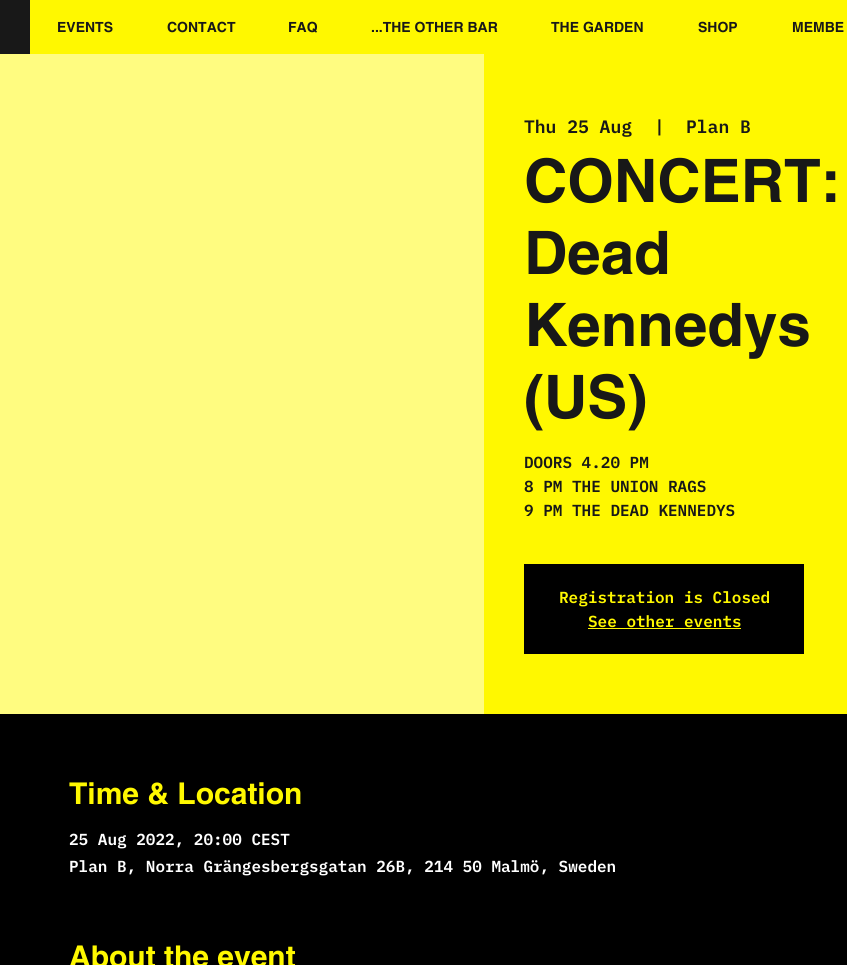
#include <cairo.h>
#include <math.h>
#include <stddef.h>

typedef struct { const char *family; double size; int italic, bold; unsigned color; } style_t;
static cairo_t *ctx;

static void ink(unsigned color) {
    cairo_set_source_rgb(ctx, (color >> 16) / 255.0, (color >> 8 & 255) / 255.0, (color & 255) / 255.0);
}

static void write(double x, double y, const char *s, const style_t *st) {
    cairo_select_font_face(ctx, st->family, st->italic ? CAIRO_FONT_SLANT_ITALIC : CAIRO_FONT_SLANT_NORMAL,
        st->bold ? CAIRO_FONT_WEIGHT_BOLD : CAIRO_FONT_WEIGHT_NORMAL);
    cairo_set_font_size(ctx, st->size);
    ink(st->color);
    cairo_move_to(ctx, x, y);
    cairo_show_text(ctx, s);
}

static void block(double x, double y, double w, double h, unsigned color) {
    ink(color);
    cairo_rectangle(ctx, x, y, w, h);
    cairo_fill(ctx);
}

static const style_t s1 = {"helvetica", 14, 0, 1, 0x181818};
static const style_t s2 = {"IBM Plex Mono SemiBold", 18, 0, 0, 0x181818};
static const style_t s3 = {"helvetica", 60, 0, 1, 0x181818};
static const style_t s4 = {"IBM Plex Mono SemiBold", 16, 0, 0, 0x181818};
static const style_t s5 = {"IBM Plex Mono SemiBold", 16, 0, 0, 0xfff800};
static const style_t s6 = {"helvetica", 30, 0, 1, 0xfff800};
static const style_t s7 = {"IBM Plex Mono SemiBold", 16, 0, 0, 0xffffff};

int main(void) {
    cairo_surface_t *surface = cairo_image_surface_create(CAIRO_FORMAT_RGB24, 847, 965);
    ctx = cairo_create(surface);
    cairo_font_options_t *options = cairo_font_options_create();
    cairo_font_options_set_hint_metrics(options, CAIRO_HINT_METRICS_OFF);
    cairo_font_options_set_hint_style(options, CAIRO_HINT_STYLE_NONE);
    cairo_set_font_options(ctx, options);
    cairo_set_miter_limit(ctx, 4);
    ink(0x000000);
    cairo_paint(ctx);
    block(30, 0, 817, 54, 0xfff800);
    block(0, 0, 30, 54, 0x181818);
    write(57, 32, "EVENTS", &s1);
    write(167, 32, "CONTACT", &s1);
    write(288, 32, "FAQ", &s1);
    write(371, 32, "...THE OTHER BAR", &s1);
    write(551, 32, "THE GARDEN", &s1);
    write(698, 32, "SHOP", &s1);
    write(792, 32, "MEMBE", &s1);
    block(0, 54, 484, 660, 0xfffc80);
    block(484, 54, 363, 660, 0xfff800);
    write(524, 133, "Thu 25 Aug", &s2);
    write(654, 133, "|", &s2);
    write(686, 133, "Plan B", &s2);
    write(524, 202, "CONCERT:", &s3);
    write(524, 274, "Dead", &s3);
    write(524, 346, "Kennedys", &s3);
    write(524, 418, "(US)", &s3);
    write(524, 468, "DOORS 4.20 PM", &s4);
    write(524, 492, "8 PM THE UNION RAGS", &s4);
    write(524, 516, "9 PM THE DEAD KENNEDYS", &s4);
    block(524, 564, 280, 90, 0x000000);
    write(559, 603, "Registration is Closed", &s5);
    write(588, 627, "See other events", &s5);
    block(588, 628, 153, 1, 0xfff800);
    write(69, 804, "Time & Location", &s6);
    write(69, 845, "25 Aug 2022, 20:00 CEST", &s7);
    write(69, 872, "Plan B, Norra Grängesbergsgatan 26B, 214 50 Malmö, Sweden", &s7);
    write(69, 967, "About the event", &s6);
    cairo_surface_write_to_png(surface, "screenshot.png");
    cairo_font_options_destroy(options);
    cairo_destroy(ctx);
    cairo_surface_destroy(surface);
    return 0;
}
